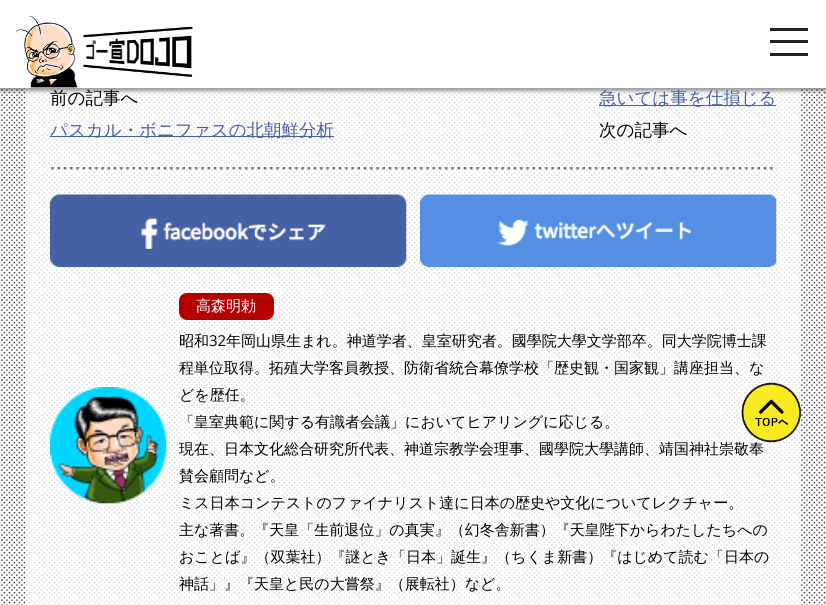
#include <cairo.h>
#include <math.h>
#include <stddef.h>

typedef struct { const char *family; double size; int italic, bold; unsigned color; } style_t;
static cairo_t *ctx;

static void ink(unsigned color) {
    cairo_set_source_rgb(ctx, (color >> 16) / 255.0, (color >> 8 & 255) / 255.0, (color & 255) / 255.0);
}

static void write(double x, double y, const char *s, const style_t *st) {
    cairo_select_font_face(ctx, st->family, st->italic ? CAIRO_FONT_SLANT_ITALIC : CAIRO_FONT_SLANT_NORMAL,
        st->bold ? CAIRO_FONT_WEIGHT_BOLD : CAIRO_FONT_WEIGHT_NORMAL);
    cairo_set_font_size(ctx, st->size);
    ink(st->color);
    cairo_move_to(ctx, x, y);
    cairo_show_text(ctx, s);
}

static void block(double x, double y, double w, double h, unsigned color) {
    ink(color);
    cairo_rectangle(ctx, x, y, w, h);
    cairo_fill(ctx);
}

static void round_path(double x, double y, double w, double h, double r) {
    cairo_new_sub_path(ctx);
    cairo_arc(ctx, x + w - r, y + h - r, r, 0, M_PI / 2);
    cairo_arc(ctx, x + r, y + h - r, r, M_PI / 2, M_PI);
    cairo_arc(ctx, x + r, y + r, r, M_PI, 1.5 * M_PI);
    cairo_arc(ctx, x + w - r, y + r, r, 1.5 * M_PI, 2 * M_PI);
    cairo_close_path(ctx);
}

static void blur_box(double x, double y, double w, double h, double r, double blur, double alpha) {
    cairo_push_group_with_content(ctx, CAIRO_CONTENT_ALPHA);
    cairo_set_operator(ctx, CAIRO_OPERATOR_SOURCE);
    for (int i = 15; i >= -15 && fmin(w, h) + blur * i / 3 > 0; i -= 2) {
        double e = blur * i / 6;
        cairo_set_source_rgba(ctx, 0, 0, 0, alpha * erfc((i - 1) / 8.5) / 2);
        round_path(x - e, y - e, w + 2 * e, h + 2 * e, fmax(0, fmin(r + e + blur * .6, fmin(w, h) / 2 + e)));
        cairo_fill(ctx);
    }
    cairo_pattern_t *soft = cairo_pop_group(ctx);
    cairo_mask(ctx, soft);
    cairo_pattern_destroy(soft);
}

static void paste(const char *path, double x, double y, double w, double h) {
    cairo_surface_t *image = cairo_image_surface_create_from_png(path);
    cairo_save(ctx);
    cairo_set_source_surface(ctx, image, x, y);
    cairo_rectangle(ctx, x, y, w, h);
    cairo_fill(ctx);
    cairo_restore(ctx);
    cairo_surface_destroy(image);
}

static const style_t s1 = {"WenQuanYi Zen Hei Medium", 17.5, 0, 0, 0x000000};
static const style_t s2 = {"WenQuanYi Zen Hei Medium", 17.5, 0, 0, 0x4660a4};
static const style_t s3 = {"WenQuanYi Zen Hei Medium", 15, 0, 0, 0xffffff};
static const style_t s4 = {"WenQuanYi Zen Hei Medium", 15, 0, 0, 0x000000};
static const style_t s5 = {"Open Sans", 15, 0, 0, 0x000000};

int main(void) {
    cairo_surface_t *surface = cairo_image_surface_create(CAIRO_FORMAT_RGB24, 826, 605);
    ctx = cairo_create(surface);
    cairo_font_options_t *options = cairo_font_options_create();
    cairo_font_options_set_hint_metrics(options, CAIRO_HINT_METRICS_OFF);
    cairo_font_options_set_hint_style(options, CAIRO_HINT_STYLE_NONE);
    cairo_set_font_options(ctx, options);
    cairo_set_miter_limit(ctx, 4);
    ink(0xffffff);
    cairo_paint(ctx);
    paste("pic1.png", 0, 88, 826, 517);
    ink(0x000000);
    blur_box(-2, -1, 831, 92, 0, 2, 0.4);
    block(0, 0, 826, 88, 0xffffff);
    paste("pic2.png", 16, 16, 177, 72);
    block(770, 40, 38, 3, 0x222222);
    block(770, 28, 38, 3, 0x222222);
    block(770, 53, 38, 3, 0x222222);
    paste("pic3.png", 51, 167, 726, 3);
    write(50, 104, "前の記事へ", &s1);
    block(50, 136, 284, 1, 0x4660a4);
    write(50, 136, "パスカル・ボニファスの北朝鮮分析", &s2);
    block(599, 105, 177, 1, 0x4660a4);
    write(599, 104, "急いては事を仕損じる", &s2);
    write(599, 136, "次の記事へ", &s1);
    paste("pic4.png", 50, 194, 357, 73);
    paste("pic5.png", 420, 194, 357, 73);
    paste("pic6.png", 50, 387, 117, 117);
    ink(0xb50000);
    round_path(179, 293, 95, 27, 8);
    cairo_fill(ctx);
    write(196, 311, "高森明勅", &s3);
    write(179, 346, "昭和", &s4);
    write(209, 346, "32", &s5);
    write(226, 346, "年岡山県生まれ。神道学者、皇室研究者。國學院大學文学部卒。同大学院博士課", &s4);
    write(179, 373, "程単位取得。拓殖大学客員教授、防衛省統合幕僚学校「歴史観・国家観」講座担当、な", &s4);
    write(179, 400, "どを歴任。", &s4);
    write(179, 427, "「皇室典範に関する有識者会議」においてヒアリングに応じる。", &s4);
    write(179, 454, "現在、日本文化総合研究所代表、神道宗教学会理事、國學院大學講師、靖国神社崇敬奉", &s4);
    write(179, 481, "賛会顧問など。", &s4);
    write(179, 508, "ミス日本コンテストのファイナリスト達に日本の歴史や文化についてレクチャー。", &s4);
    write(179, 535, "主な著書。『天皇「生前退位」の真実』（幻冬舎新書）『天皇陛下からわたしたちへの", &s4);
    write(179, 562, "おことば』（双葉社）『謎とき「日本」誕生』（ちくま新書）『はじめて読む「日本の", &s4);
    write(179, 589, "神話」』『天皇と民の大嘗祭』（展転社）など。", &s4);
    paste("pic7.png", 741, 382, 61, 61);
    cairo_surface_write_to_png(surface, "screenshot.png");
    cairo_font_options_destroy(options);
    cairo_destroy(ctx);
    cairo_surface_destroy(surface);
    return 0;
}
